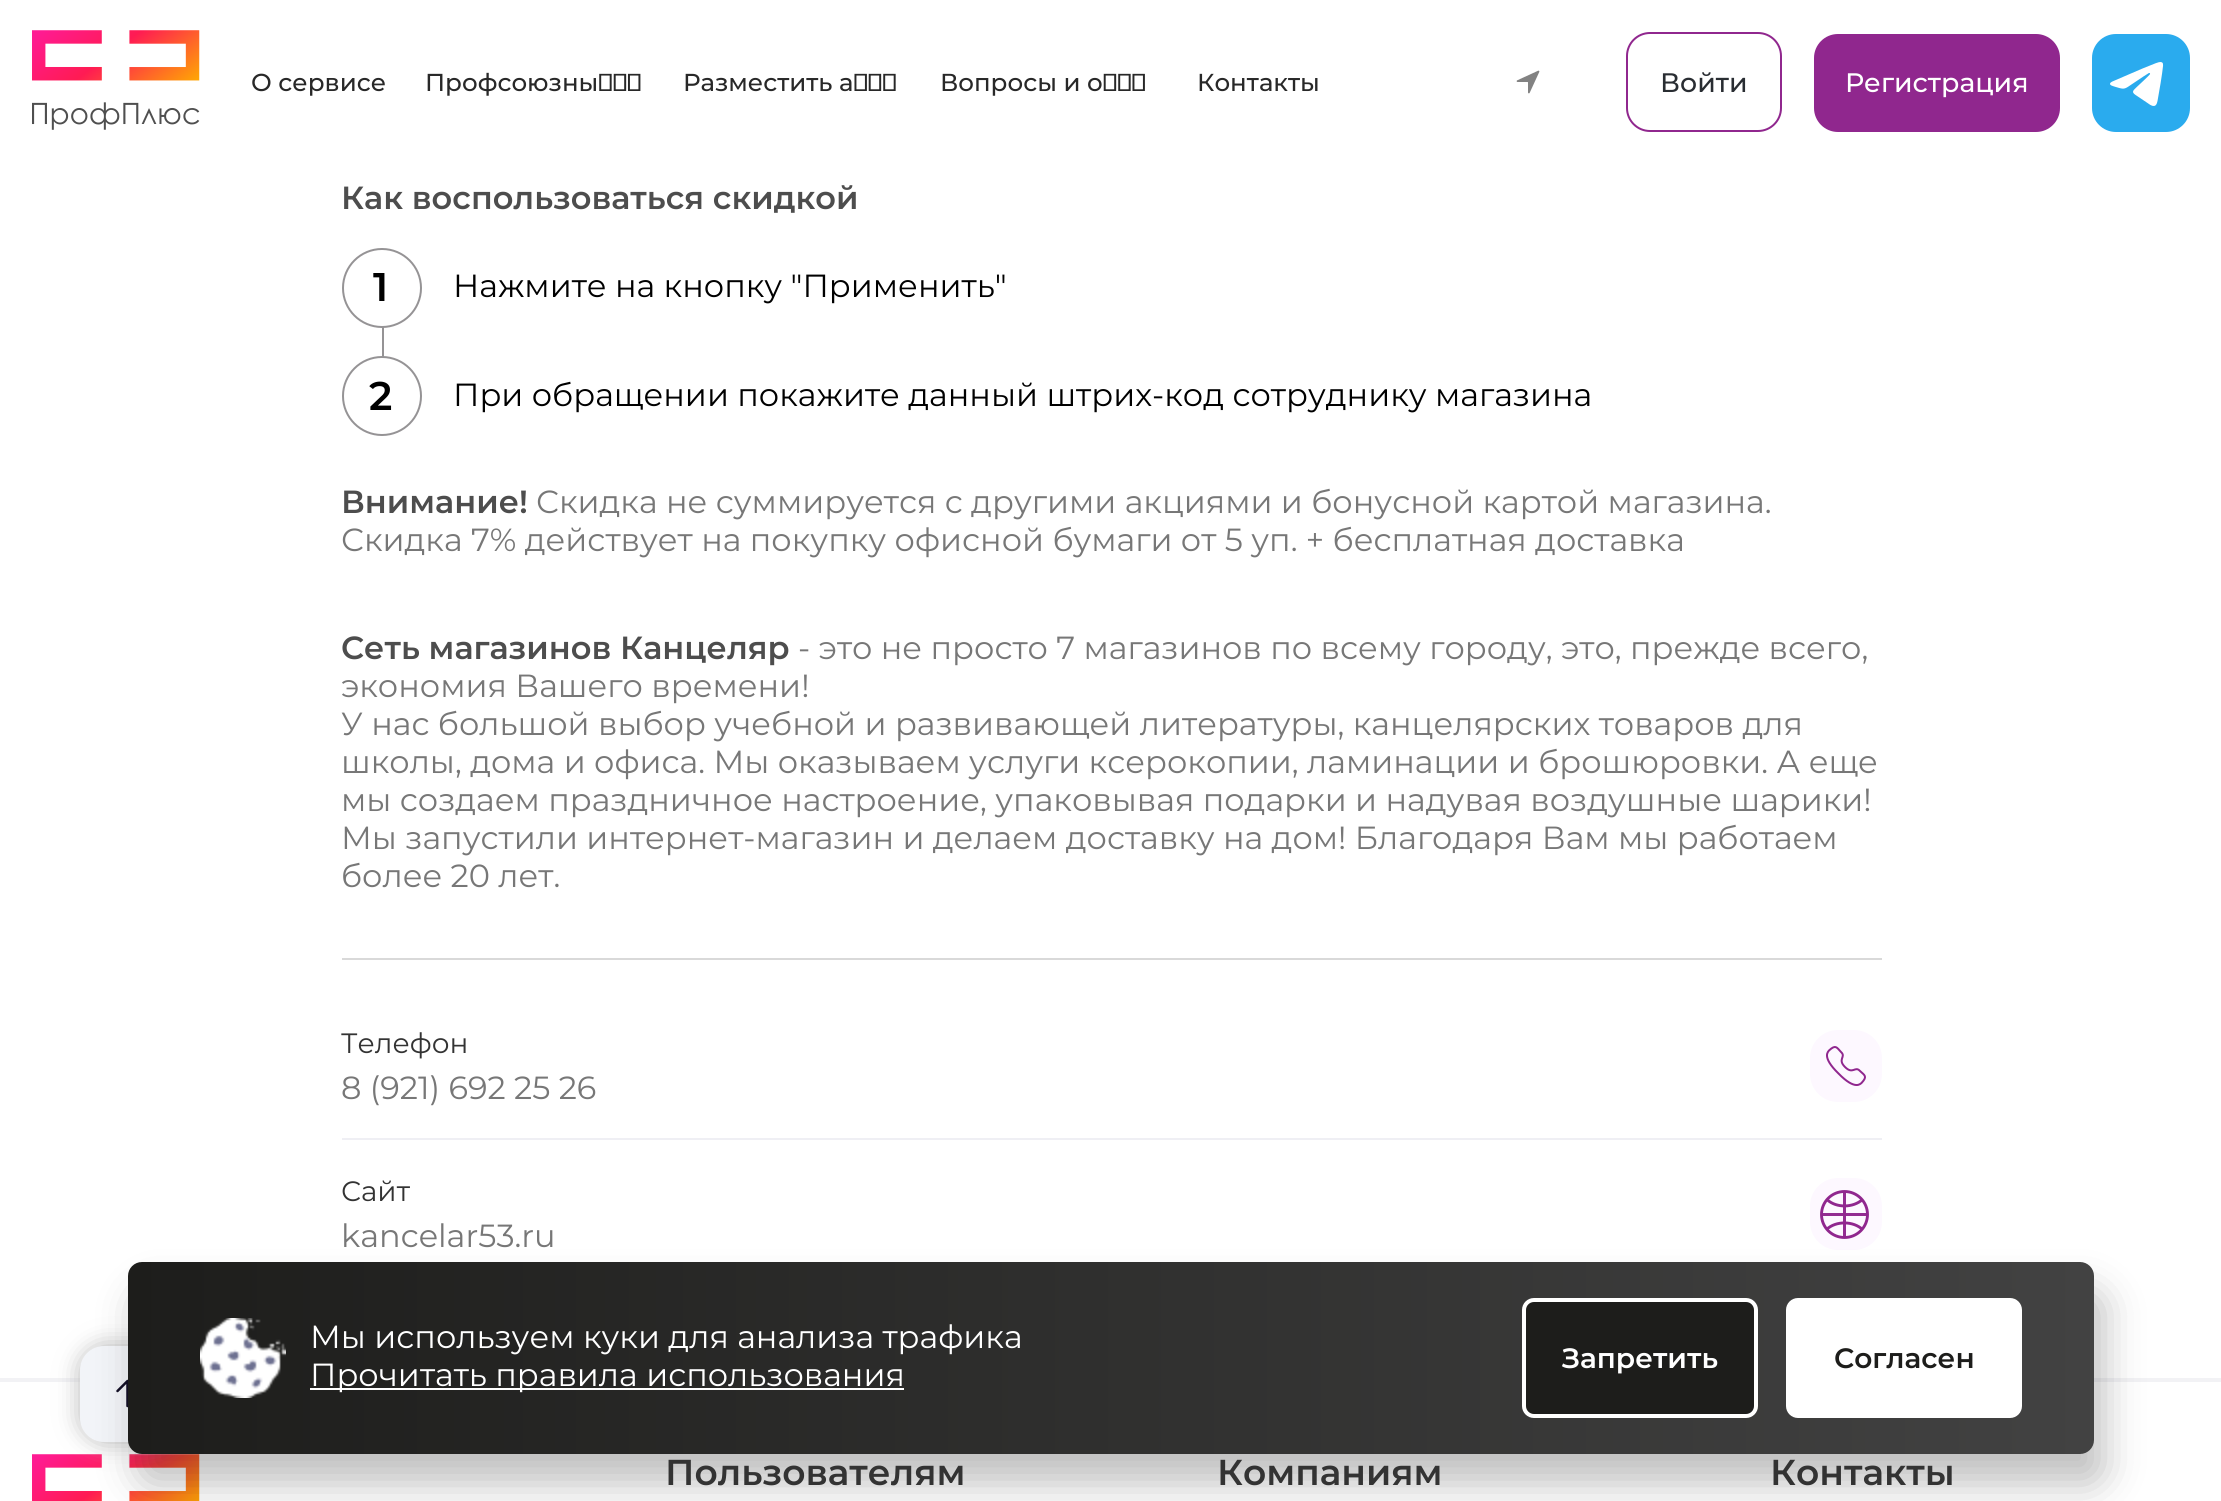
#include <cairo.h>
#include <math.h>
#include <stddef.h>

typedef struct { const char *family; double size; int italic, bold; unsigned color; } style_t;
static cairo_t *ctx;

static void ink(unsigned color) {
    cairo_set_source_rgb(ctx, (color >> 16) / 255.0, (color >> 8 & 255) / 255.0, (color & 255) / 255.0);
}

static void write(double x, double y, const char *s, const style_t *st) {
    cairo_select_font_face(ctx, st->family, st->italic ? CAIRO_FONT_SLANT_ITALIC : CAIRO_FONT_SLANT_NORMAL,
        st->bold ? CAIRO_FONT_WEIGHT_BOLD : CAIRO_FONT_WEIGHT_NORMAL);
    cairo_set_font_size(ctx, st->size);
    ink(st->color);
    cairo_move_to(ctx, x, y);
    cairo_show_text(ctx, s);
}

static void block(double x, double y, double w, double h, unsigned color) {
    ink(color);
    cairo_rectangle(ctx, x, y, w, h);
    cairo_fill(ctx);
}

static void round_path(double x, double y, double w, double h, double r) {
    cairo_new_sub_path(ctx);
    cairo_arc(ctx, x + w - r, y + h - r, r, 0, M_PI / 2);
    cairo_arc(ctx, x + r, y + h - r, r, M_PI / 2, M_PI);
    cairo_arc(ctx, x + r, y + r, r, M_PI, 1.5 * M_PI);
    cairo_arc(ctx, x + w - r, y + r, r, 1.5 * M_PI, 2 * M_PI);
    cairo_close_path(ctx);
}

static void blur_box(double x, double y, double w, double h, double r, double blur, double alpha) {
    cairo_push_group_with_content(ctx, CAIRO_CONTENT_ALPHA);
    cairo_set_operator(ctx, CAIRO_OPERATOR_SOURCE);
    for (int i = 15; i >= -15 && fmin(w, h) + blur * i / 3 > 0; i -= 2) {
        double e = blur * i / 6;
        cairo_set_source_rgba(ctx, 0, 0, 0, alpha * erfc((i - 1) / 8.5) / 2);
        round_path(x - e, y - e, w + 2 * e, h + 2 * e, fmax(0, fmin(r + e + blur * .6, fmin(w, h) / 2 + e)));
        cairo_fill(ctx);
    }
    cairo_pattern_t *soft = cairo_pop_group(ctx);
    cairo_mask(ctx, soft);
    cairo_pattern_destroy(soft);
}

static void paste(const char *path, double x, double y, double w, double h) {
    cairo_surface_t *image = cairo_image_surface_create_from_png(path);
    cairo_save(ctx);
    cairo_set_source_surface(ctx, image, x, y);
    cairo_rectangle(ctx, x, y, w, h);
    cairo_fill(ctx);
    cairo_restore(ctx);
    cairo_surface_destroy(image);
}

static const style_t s1 = {"Montserrat Medium", 24.5, 0, 0, 0x282828};
static const style_t s2 = {"Montserrat Medium", 26.75, 0, 0, 0x292d32};
static const style_t s3 = {"Montserrat Medium", 26.75, 0, 0, 0xffffff};
static const style_t s4 = {"Montserrat SemiBold", 32, 0, 0, 0x4d4d4d};
static const style_t s5 = {"Montserrat SemiBold", 40, 0, 0, 0x000000};
static const style_t s6 = {"Montserrat", 32, 0, 0, 0x000000};
static const style_t s7 = {"Montserrat", 32, 0, 0, 0x777777};
static const style_t s8 = {"Montserrat", 28, 0, 0, 0x333333};
static const style_t s9 = {"Montserrat", 32, 0, 0, 0xffffff};
static const style_t s10 = {"Montserrat SemiBold", 28, 0, 0, 0xffffff};
static const style_t s11 = {"Montserrat SemiBold", 28, 0, 0, 0x1d1d1b};
static const style_t s12 = {"Montserrat SemiBold", 36, 0, 0, 0x333333};

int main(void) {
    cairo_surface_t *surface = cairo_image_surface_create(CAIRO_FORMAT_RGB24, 2221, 1501);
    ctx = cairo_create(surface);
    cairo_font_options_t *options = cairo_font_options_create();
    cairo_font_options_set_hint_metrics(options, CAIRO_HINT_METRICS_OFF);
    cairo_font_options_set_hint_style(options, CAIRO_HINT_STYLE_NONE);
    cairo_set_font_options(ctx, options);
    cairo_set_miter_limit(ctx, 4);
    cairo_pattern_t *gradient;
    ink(0xffffff);
    cairo_paint(ctx);
    paste("pic1.png", 32, 30, 168, 100);
    write(251, 91, "О сервисе", &s1);
    write(425, 91, "Профсоюзны...", &s1);
    write(683, 91, "Разместить а...", &s1);
    write(940, 91, "Вопросы и о...", &s1);
    write(1197, 91, "Контакты", &s1);
    paste("pic2.png", 1516, 70, 24, 24);
    round_path(1627, 33, 154, 98, 23);
    ink(0x90278e);
    cairo_stroke(ctx);
    write(1660, 92, "Войти", &s2);
    ink(0x90278e);
    round_path(1814, 34, 246, 98, 24);
    cairo_fill(ctx);
    write(1845, 92, "Регистрация", &s3);
    ink(0x2aabee);
    round_path(2092, 34, 98, 98, 24);
    cairo_fill(ctx);
    paste("pic3.png", 2110, 62, 54, 44);
    block(342, 958, 1540, 2, 0xd9d9d9);
    write(341, 209, "Как воспользоваться скидкой", &s4);
    block(382, 327, 2, 30, 0x959395);
    ink(0xffffff);
    cairo_new_path(ctx);
    cairo_arc(ctx, 382, 288, 39, 0, 2 * M_PI);
    cairo_fill_preserve(ctx);
    ink(0x959395);
    cairo_stroke(ctx);
    write(373, 301, "1", &s5);
    write(453, 297, "Нажмите на кнопку \"Применить\"", &s6);
    ink(0xffffff);
    cairo_new_path(ctx);
    cairo_arc(ctx, 382, 396, 39, 0, 2 * M_PI);
    cairo_fill_preserve(ctx);
    ink(0x959395);
    cairo_stroke(ctx);
    write(369, 410, "2", &s5);
    write(453, 406, "При обращении покажите данный штрих-код сотруднику магазина", &s6);
    write(341, 513, "Внимание!", &s4);
    write(536, 513, "Скидка не суммируется с другими акциями и бонусной картой магазина.", &s7);
    write(341, 551, "Скидка 7% действует на покупку офисной бумаги от 5 уп. + бесплатная доставка", &s7);
    write(341, 659, "Сеть магазинов Канцеляр", &s4);
    write(798, 659, "- это не просто 7 магазинов по всему городу, это, прежде всего,", &s7);
    write(341, 697, "экономия Вашего времени!", &s7);
    write(341, 735, "У нас большой выбор учебной и развивающей литературы, канцелярских товаров для", &s7);
    write(341, 773, "школы, дома и офиса. Мы оказываем услуги ксерокопии, ламинации и брошюровки. А еще", &s7);
    write(341, 811, "мы создаем праздничное настроение, упаковывая подарки и надувая воздушные шарики!", &s7);
    write(341, 849, "Мы запустили интернет-магазин и делаем доставку на дом! Благодаря Вам мы работаем", &s7);
    write(341, 887, "более 20 лет.", &s7);
    write(341, 1053, "Телефон", &s8);
    write(341, 1099, "8 (921) 692 25 26", &s7);
    ink(0xfdf8ff);
    round_path(1810, 1030, 72, 72, 28);
    cairo_fill(ctx);
    cairo_new_path(ctx);
    cairo_move_to(ctx, 1845, 1067);
    cairo_curve_to(ctx, 1853, 1075, 1855, 1065.5, 1860, 1071);
    cairo_curve_to(ctx, 1865, 1075.5, 1867.5, 1076.5, 1861.5, 1083);
    cairo_curve_to(ctx, 1860.5, 1083.5, 1855.5, 1091, 1838.5, 1073.5);
    cairo_curve_to(ctx, 1821, 1056.5, 1828.5, 1051.5, 1829, 1050.5);
    cairo_curve_to(ctx, 1835.5, 1044.5, 1836.5, 1047, 1841, 1052);
    cairo_curve_to(ctx, 1846.5, 1057, 1837, 1059, 1845, 1067);
    cairo_close_path(ctx);
    ink(0x90278e);
    cairo_set_line_cap(ctx, CAIRO_LINE_CAP_ROUND);
    cairo_set_line_join(ctx, CAIRO_LINE_JOIN_ROUND);
    cairo_stroke(ctx);
    block(342, 1138, 1540, 2, 0xefeff4);
    write(341, 1201, "Сайт", &s8);
    write(341, 1247, "kancelar53.ru", &s7);
    ink(0xfdf8ff);
    round_path(1810, 1178, 72, 72, 28);
    cairo_fill(ctx);
    cairo_arc(ctx, 1844.5, 1214.5, 23, 0, 2 * M_PI);
    ink(0x90278e);
    cairo_set_line_width(ctx, 2.9);
    cairo_set_line_cap(ctx, CAIRO_LINE_CAP_BUTT);
    cairo_set_line_join(ctx, CAIRO_LINE_JOIN_MITER);
    cairo_stroke(ctx);
    cairo_new_path(ctx);
    cairo_move_to(ctx, 1862.5, 1199.5);
    cairo_curve_to(ctx, 1853, 1208, 1836.5, 1208, 1827.5, 1200);
    cairo_move_to(ctx, 1862.5, 1229.5);
    cairo_curve_to(ctx, 1853.5, 1221, 1836, 1220.5, 1826.5, 1229.5);
    cairo_stroke(ctx);
    cairo_set_source_rgba(ctx, 0.565, 0.153, 0.557, 0.97);
    cairo_rectangle(ctx, 1843, 1192, 3, 46);
    cairo_fill(ctx);
    cairo_rectangle(ctx, 1822, 1213, 46, 3);
    cairo_fill(ctx);
    block(0, 1378, 2221, 4, 0xf2f2f5);
    paste("pic5.png", 32, 1454, 168, 47);
    ink(0xb9b9b9);
    blur_box(80, 1346, 96, 96, 24, 12, 1);
    ink(0xf2f4f8);
    round_path(80, 1346, 96, 96, 24);
    cairo_fill(ctx);
    cairo_new_path(ctx);
    cairo_move_to(ctx, 127.5, 1381);
    cairo_line_to(ctx, 127.5, 1406);
    cairo_move_to(ctx, 117.5, 1391);
    cairo_line_to(ctx, 127.5, 1381);
    cairo_line_to(ctx, 137.5, 1391);
    ink(0x130f26);
    cairo_set_line_width(ctx, 2.5);
    cairo_set_line_cap(ctx, CAIRO_LINE_CAP_ROUND);
    cairo_set_line_join(ctx, CAIRO_LINE_JOIN_ROUND);
    cairo_stroke(ctx);
    ink(0x000000);
    blur_box(138, 1292, 1966, 192, 14, 20, 0.25);
    gradient = cairo_pattern_create_linear(128, 1358, 2094, 1358);
    cairo_pattern_add_color_stop_rgba(gradient, 0, 0.114, 0.114, 0.106, 1);
    cairo_pattern_add_color_stop_rgba(gradient, 1, 0.259, 0.259, 0.259, 1);
    cairo_set_source(ctx, gradient);
    cairo_pattern_destroy(gradient);
    round_path(128, 1262, 1966, 192, 14);
    cairo_fill(ctx);
    paste("pic4.png", 200, 1318, 86, 80);
    write(310, 1348, "Мы используем куки для анализа трафика", &s9);
    block(310, 1388, 594, 2, 0xffffff);
    write(310, 1386, "Прочитать правила использования", &s9);
    ink(0x1d1d1b);
    round_path(1524, 1300, 232, 116, 10);
    cairo_fill_preserve(ctx);
    ink(0xffffff);
    cairo_set_line_width(ctx, 4);
    cairo_set_line_cap(ctx, CAIRO_LINE_CAP_BUTT);
    cairo_set_line_join(ctx, CAIRO_LINE_JOIN_MITER);
    cairo_stroke(ctx);
    write(1562, 1368, "Запретить", &s10);
    round_path(1788, 1300, 232, 116, 10);
    cairo_fill_preserve(ctx);
    cairo_stroke(ctx);
    write(1834, 1368, "Согласен", &s11);
    write(665, 1485, "Пользователям", &s12);
    write(1217, 1485, "Компаниям", &s12);
    write(1770, 1485, "Контакты", &s12);
    cairo_surface_write_to_png(surface, "screenshot.png");
    cairo_font_options_destroy(options);
    cairo_destroy(ctx);
    cairo_surface_destroy(surface);
    return 0;
}
